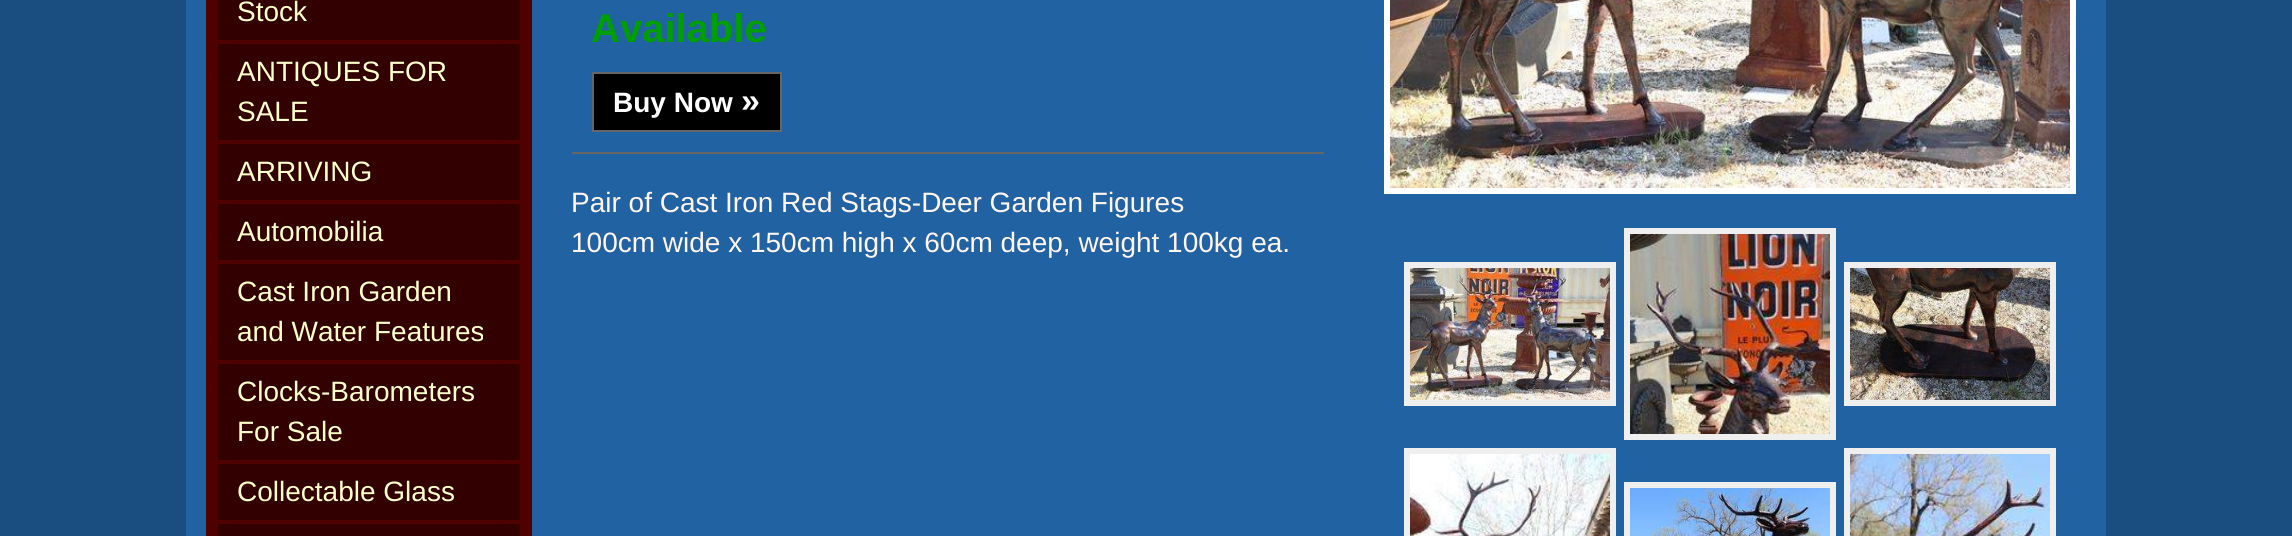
#include <cairo.h>
#include <math.h>
#include <stddef.h>

typedef struct { const char *family; double size; int italic, bold; unsigned color; } style_t;
static cairo_t *ctx;

static void ink(unsigned color) {
    cairo_set_source_rgb(ctx, (color >> 16) / 255.0, (color >> 8 & 255) / 255.0, (color & 255) / 255.0);
}

static void write(double x, double y, const char *s, const style_t *st) {
    cairo_select_font_face(ctx, st->family, st->italic ? CAIRO_FONT_SLANT_ITALIC : CAIRO_FONT_SLANT_NORMAL,
        st->bold ? CAIRO_FONT_WEIGHT_BOLD : CAIRO_FONT_WEIGHT_NORMAL);
    cairo_set_font_size(ctx, st->size);
    ink(st->color);
    cairo_move_to(ctx, x, y);
    cairo_show_text(ctx, s);
}

static void block(double x, double y, double w, double h, unsigned color) {
    ink(color);
    cairo_rectangle(ctx, x, y, w, h);
    cairo_fill(ctx);
}

static void paste(const char *path, double x, double y, double w, double h) {
    cairo_surface_t *image = cairo_image_surface_create_from_png(path);
    cairo_save(ctx);
    cairo_set_source_surface(ctx, image, x, y);
    cairo_rectangle(ctx, x, y, w, h);
    cairo_fill(ctx);
    cairo_restore(ctx);
    cairo_surface_destroy(image);
}

static const style_t s1 = {"Liberation Sans", 28, 0, 0, 0xffffcc};
static const style_t s2 = {"Liberation Sans", 40, 0, 1, 0x009f00};
static const style_t s3 = {"Liberation Sans", 28, 0, 1, 0xffffff};
static const style_t s4 = {"Liberation Sans", 34, 0, 1, 0xffffff};
static const style_t s5 = {"Liberation Sans", 28, 0, 0, 0xfff5ee};

int main(void) {
    cairo_surface_t *surface = cairo_image_surface_create(CAIRO_FORMAT_RGB24, 2292, 536);
    ctx = cairo_create(surface);
    cairo_font_options_t *options = cairo_font_options_create();
    cairo_font_options_set_hint_metrics(options, CAIRO_HINT_METRICS_OFF);
    cairo_font_options_set_hint_style(options, CAIRO_HINT_STYLE_NONE);
    cairo_set_font_options(ctx, options);
    cairo_set_miter_limit(ctx, 4);
    ink(0x1a4d80);
    cairo_paint(ctx);
    block(186, 0, 1920, 536, 0x2162a3);
    block(206, 0, 326, 536, 0x4f0000);
    block(218, 0, 302, 40, 0x330000);
    write(237, 21, "Stock", &s1);
    block(218, 44, 302, 96, 0x330000);
    write(237, 81, "ANTIQUES FOR", &s1);
    write(237, 121, "SALE", &s1);
    block(218, 144, 302, 56, 0x330000);
    write(237, 181, "ARRIVING", &s1);
    block(218, 204, 302, 56, 0x330000);
    write(237, 241, "Automobilia", &s1);
    block(218, 264, 302, 96, 0x330000);
    write(237, 301, "Cast Iron Garden", &s1);
    write(237, 341, "and Water Features", &s1);
    block(218, 364, 302, 96, 0x330000);
    write(237, 401, "Clocks-Barometers", &s1);
    write(237, 441, "For Sale", &s1);
    block(218, 464, 302, 56, 0x330000);
    write(237, 501, "Collectable Glass", &s1);
    block(218, 524, 302, 12, 0x330000);
    write(591, 42, "Available", &s2);
    block(572, 152, 752, 2, 0x666666);
    ink(0x000000);
    cairo_rectangle(ctx, 593, 73, 188, 58);
    cairo_fill_preserve(ctx);
    ink(0x666666);
    cairo_stroke(ctx);
    write(613, 112, "Buy Now", &s3);
    write(741, 112, "»", &s4);
    write(571, 212, "Pair of Cast Iron Red Stags-Deer Garden Figures", &s5);
    write(571, 252, "100cm wide x 150cm high x 60cm deep, weight 100kg ea.", &s5);
    cairo_rectangle(ctx, 1387, -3, 686, 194);
    ink(0xffffff);
    cairo_set_line_width(ctx, 6);
    cairo_stroke(ctx);
    paste("pic1.png", 1390, 0, 680, 188);
    cairo_rectangle(ctx, 1407, 265, 206, 138);
    ink(0xefefef);
    cairo_stroke(ctx);
    paste("pic2.png", 1410, 268, 200, 132);
    cairo_rectangle(ctx, 1627, 231, 206, 206);
    cairo_stroke(ctx);
    paste("pic3.png", 1630, 234, 200, 200);
    cairo_rectangle(ctx, 1847, 265, 206, 138);
    cairo_stroke(ctx);
    paste("pic4.png", 1850, 268, 200, 132);
    cairo_rectangle(ctx, 1407, 451, 206, 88);
    cairo_stroke(ctx);
    paste("pic5.png", 1410, 454, 200, 82);
    cairo_rectangle(ctx, 1627, 485, 206, 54);
    cairo_stroke(ctx);
    paste("pic6.png", 1630, 488, 200, 48);
    cairo_rectangle(ctx, 1847, 451, 206, 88);
    cairo_stroke(ctx);
    paste("pic7.png", 1850, 454, 200, 82);
    cairo_surface_write_to_png(surface, "screenshot.png");
    cairo_font_options_destroy(options);
    cairo_destroy(ctx);
    cairo_surface_destroy(surface);
    return 0;
}
